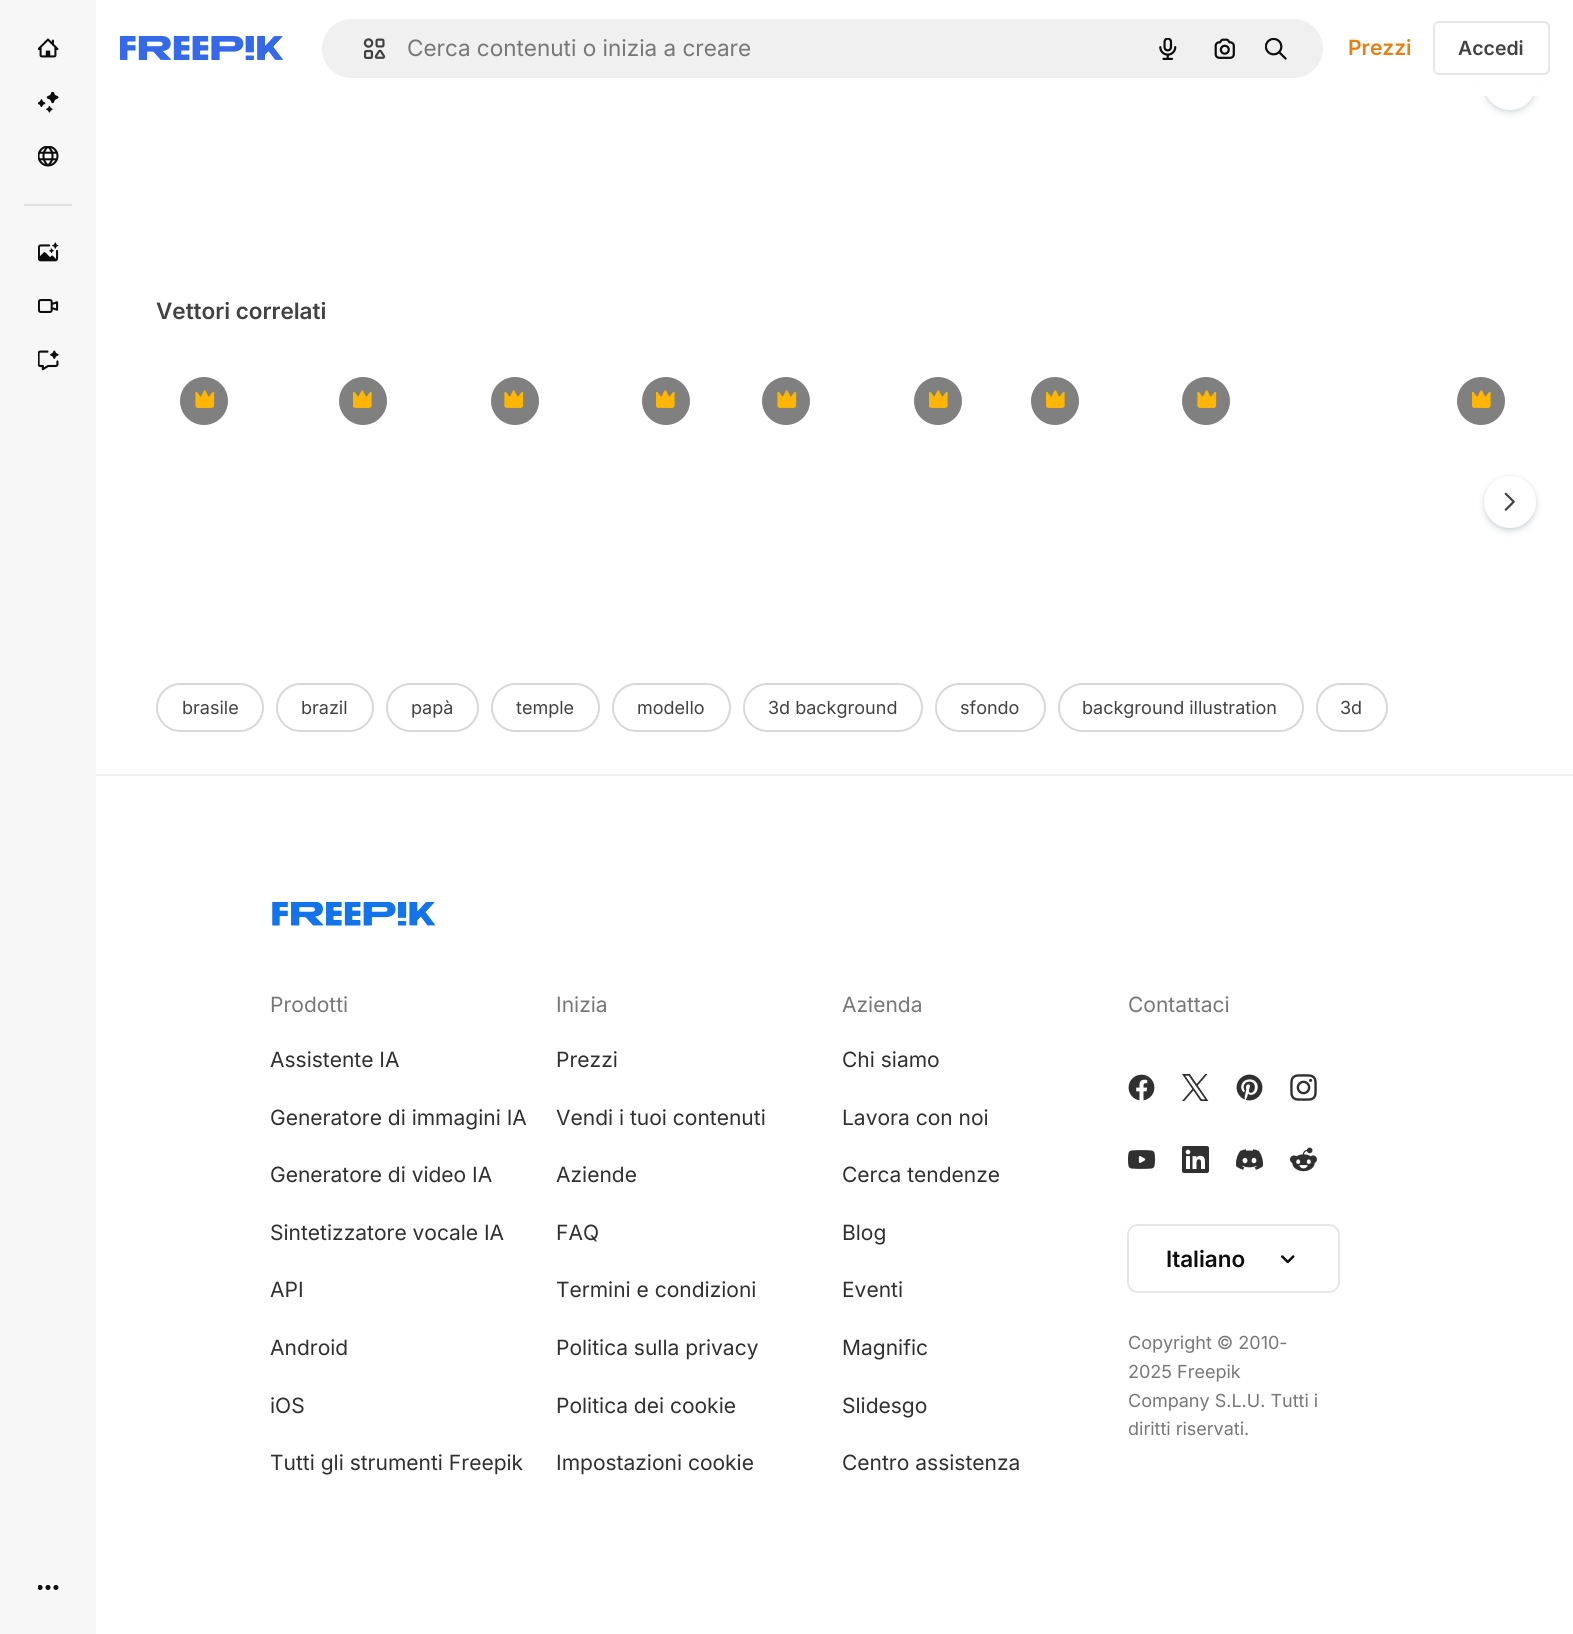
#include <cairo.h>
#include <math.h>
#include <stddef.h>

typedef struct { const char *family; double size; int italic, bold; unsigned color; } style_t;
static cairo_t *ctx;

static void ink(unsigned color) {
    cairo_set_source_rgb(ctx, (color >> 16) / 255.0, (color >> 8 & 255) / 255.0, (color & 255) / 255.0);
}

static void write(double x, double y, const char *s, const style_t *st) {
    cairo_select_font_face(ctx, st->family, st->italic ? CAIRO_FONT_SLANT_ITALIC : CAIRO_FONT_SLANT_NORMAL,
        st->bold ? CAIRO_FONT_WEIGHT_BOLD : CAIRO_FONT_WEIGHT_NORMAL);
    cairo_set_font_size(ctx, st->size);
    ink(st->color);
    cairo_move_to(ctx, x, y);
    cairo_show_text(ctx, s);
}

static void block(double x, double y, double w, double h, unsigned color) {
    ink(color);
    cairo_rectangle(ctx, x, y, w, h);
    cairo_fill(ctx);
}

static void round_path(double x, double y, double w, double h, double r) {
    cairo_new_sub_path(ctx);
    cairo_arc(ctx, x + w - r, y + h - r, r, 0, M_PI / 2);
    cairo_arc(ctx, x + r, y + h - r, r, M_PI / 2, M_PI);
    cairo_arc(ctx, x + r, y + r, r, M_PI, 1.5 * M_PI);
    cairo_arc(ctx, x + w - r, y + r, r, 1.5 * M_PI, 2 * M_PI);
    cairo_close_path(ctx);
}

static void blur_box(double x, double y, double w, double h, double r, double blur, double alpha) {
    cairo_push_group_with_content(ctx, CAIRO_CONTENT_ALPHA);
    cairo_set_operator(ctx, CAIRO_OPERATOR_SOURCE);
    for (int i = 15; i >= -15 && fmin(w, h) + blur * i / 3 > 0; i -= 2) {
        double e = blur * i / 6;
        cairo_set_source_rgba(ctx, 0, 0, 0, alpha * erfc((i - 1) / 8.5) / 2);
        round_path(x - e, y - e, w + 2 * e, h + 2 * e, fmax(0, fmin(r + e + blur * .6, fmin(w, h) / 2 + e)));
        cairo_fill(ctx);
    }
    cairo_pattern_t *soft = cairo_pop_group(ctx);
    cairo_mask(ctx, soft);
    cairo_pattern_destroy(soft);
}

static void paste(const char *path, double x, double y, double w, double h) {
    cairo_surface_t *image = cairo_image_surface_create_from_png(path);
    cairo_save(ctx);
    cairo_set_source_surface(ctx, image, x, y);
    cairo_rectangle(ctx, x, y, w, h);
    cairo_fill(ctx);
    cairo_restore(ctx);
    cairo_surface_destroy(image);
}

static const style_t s1 = {"Inter", 22.5, 0, 0, 0x777777};
static const style_t s2 = {"Inter SemiBold", 21, 0, 0, 0xea7e11};
static const style_t s3 = {"Inter SemiBold", 19.5, 0, 0, 0x424242};
static const style_t s4 = {"Inter SemiBold", 22.5, 0, 0, 0x424242};
static const style_t s5 = {"Inter", 18, 0, 0, 0x424242};
static const style_t s6 = {"Inter", 21, 0, 0, 0x777777};
static const style_t s7 = {"Inter", 21, 0, 0, 0x303030};
static const style_t s8 = {"Inter SemiBold", 22.5, 0, 0, 0x0d0d0d};
static const style_t s9 = {"Inter", 18, 0, 0, 0x777777};

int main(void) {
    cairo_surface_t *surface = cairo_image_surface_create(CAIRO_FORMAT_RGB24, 1573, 1634);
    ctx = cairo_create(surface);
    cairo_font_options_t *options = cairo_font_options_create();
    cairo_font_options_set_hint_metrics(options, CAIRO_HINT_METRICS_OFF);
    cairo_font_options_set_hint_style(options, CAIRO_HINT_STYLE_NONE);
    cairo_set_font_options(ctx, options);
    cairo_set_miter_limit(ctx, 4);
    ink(0xffffff);
    cairo_paint(ctx);
    block(0, 0, 96, 1634, 0xf7f7f7);
    paste("pic1.png", 38, 38, 21, 20);
    paste("pic2.png", 38, 92, 21, 21);
    paste("pic3.png", 38, 146, 21, 21);
    block(24, 204, 48, 2, 0xe0e0e0);
    paste("pic4.png", 38, 242, 21, 20);
    paste("pic5.png", 38, 299, 21, 14);
    paste("pic6.png", 38, 350, 21, 21);
    paste("pic7.png", 38, 1584, 21, 6);
    ink(0x374957);
    blur_box(1484, 60, 52, 53, 26, 4, 0.15);
    blur_box(1484, 59, 52, 52, 26, 1.5, 0.1);
    ink(0xffffff);
    round_path(1484, 57, 52, 53, 26);
    cairo_fill(ctx);
    block(1479, 55, 62, 41, 0xffffff);
    paste("pic8.png", 120, 36, 163, 24);
    ink(0xf0f0f0);
    round_path(321, 18, 1003, 61, 30.5);
    cairo_fill_preserve(ctx);
    ink(0xffffff);
    cairo_stroke(ctx);
    paste("pic9.png", 363, 38, 23, 21);
    write(407, 56, "Cerca contenuti o inizia a creare", &s1);
    paste("pic10.png", 1159, 38, 18, 22);
    paste("pic11.png", 1214, 38, 21, 21);
    paste("pic12.png", 1265, 38, 22, 22);
    write(1348, 55, "Prezzi", &s2);
    round_path(1434, 22, 115, 52, 5);
    ink(0xe7e7e7);
    cairo_stroke(ctx);
    write(1458, 55, "Accedi", &s3);
    write(156, 319, "Vettori correlati", &s4);
    ink(0x808080);
    cairo_new_path(ctx);
    cairo_arc(ctx, 204, 401, 24, 0, 2 * M_PI);
    cairo_fill(ctx);
    paste("pic13.png", 195, 390, 20, 18);
    cairo_arc(ctx, 363, 401, 24, 0, 2 * M_PI);
    cairo_fill(ctx);
    paste("pic14.png", 353, 390, 19, 18);
    cairo_arc(ctx, 515, 401, 24, 0, 2 * M_PI);
    cairo_fill(ctx);
    paste("pic13.png", 504, 390, 20, 18);
    cairo_arc(ctx, 666, 401, 24, 0, 2 * M_PI);
    cairo_fill(ctx);
    paste("pic14.png", 656, 390, 19, 18);
    cairo_arc(ctx, 786, 401, 24, 0, 2 * M_PI);
    cairo_fill(ctx);
    paste("pic13.png", 777, 390, 20, 18);
    cairo_arc(ctx, 938, 401, 24, 0, 2 * M_PI);
    cairo_fill(ctx);
    paste("pic14.png", 929, 390, 19, 18);
    cairo_arc(ctx, 1055, 401, 24, 0, 2 * M_PI);
    cairo_fill(ctx);
    paste("pic14.png", 1046, 390, 19, 18);
    cairo_arc(ctx, 1206, 401, 24, 0, 2 * M_PI);
    cairo_fill(ctx);
    paste("pic13.png", 1197, 390, 20, 18);
    cairo_arc(ctx, 1481, 401, 24, 0, 2 * M_PI);
    cairo_fill(ctx);
    paste("pic14.png", 1472, 390, 19, 18);
    ink(0x374957);
    blur_box(1484, 479, 52, 52, 26, 4, 0.15);
    blur_box(1484, 477, 52, 53, 26, 1.5, 0.1);
    ink(0xffffff);
    cairo_arc(ctx, 1510, 502, 26, 0, 2 * M_PI);
    cairo_fill(ctx);
    paste("pic15.png", 1504, 492, 11, 19);
    round_path(157, 684, 106, 47, 23.5);
    ink(0xd8d8d8);
    cairo_stroke(ctx);
    write(182, 714, "brasile", &s5);
    round_path(277, 684, 96, 47, 23.5);
    ink(0xd8d8d8);
    cairo_stroke(ctx);
    write(301, 714, "brazil", &s5);
    round_path(387, 684, 91, 47, 23.5);
    ink(0xd8d8d8);
    cairo_stroke(ctx);
    write(411, 714, "papà", &s5);
    round_path(492, 684, 107, 47, 23.5);
    ink(0xd8d8d8);
    cairo_stroke(ctx);
    write(516, 714, "temple", &s5);
    round_path(613, 684, 117, 47, 23.5);
    ink(0xd8d8d8);
    cairo_stroke(ctx);
    write(637, 714, "modello", &s5);
    round_path(744, 684, 178, 47, 23.5);
    ink(0xd8d8d8);
    cairo_stroke(ctx);
    write(768, 714, "3d background", &s5);
    round_path(936, 684, 109, 47, 23.5);
    ink(0xd8d8d8);
    cairo_stroke(ctx);
    write(960, 714, "sfondo", &s5);
    round_path(1059, 684, 244, 47, 23.5);
    ink(0xd8d8d8);
    cairo_stroke(ctx);
    write(1082, 714, "background illustration", &s5);
    round_path(1317, 684, 70, 47, 23.5);
    ink(0xd8d8d8);
    cairo_stroke(ctx);
    write(1340, 714, "3d", &s5);
    block(96, 774, 1477, 2, 0xf0f0f0);
    paste("pic16.png", 272, 902, 163, 24);
    write(270, 1012, "Prodotti", &s6);
    write(270, 1067, "Assistente IA", &s7);
    write(270, 1125, "Generatore di immagini IA", &s7);
    write(270, 1182, "Generatore di video IA", &s7);
    write(270, 1240, "Sintetizzatore vocale IA", &s7);
    write(270, 1297, "API", &s7);
    write(270, 1355, "Android", &s7);
    write(270, 1413, "iOS", &s7);
    write(270, 1470, "Tutti gli strumenti Freepik", &s7);
    write(556, 1012, "Inizia", &s6);
    write(556, 1067, "Prezzi", &s7);
    write(556, 1125, "Vendi i tuoi contenuti", &s7);
    write(556, 1182, "Aziende", &s7);
    write(556, 1240, "FAQ", &s7);
    write(556, 1297, "Termini e condizioni", &s7);
    write(556, 1355, "Politica sulla privacy", &s7);
    write(556, 1413, "Politica dei cookie", &s7);
    write(556, 1470, "Impostazioni cookie", &s7);
    write(842, 1012, "Azienda", &s6);
    write(842, 1067, "Chi siamo", &s7);
    write(842, 1125, "Lavora con noi", &s7);
    write(842, 1182, "Cerca tendenze", &s7);
    write(842, 1240, "Blog", &s7);
    write(842, 1297, "Eventi", &s7);
    write(842, 1355, "Magnific", &s7);
    write(842, 1413, "Slidesgo", &s7);
    write(842, 1470, "Centro assistenza", &s7);
    write(1128, 1012, "Contattaci", &s6);
    paste("pic17.png", 1128, 1074, 27, 27);
    paste("pic18.png", 1182, 1074, 27, 27);
    paste("pic19.png", 1236, 1074, 27, 27);
    paste("pic20.png", 1290, 1074, 27, 27);
    paste("pic21.png", 1128, 1150, 27, 19);
    paste("pic22.png", 1182, 1146, 27, 27);
    paste("pic23.png", 1236, 1149, 27, 21);
    paste("pic24.png", 1290, 1147, 27, 25);
    round_path(1128, 1225, 211, 67, 10);
    ink(0xe6e6e6);
    cairo_stroke(ctx);
    write(1166, 1267, "Italiano", &s8);
    paste("pic25.png", 1281, 1255, 14, 9);
    write(1128, 1349, "Copyright © 2010-", &s9);
    write(1128, 1378, "2025 Freepik", &s9);
    write(1128, 1407, "Company S.L.U. Tutti i", &s9);
    write(1128, 1435, "diritti riservati.", &s9);
    cairo_surface_write_to_png(surface, "screenshot.png");
    cairo_font_options_destroy(options);
    cairo_destroy(ctx);
    cairo_surface_destroy(surface);
    return 0;
}
